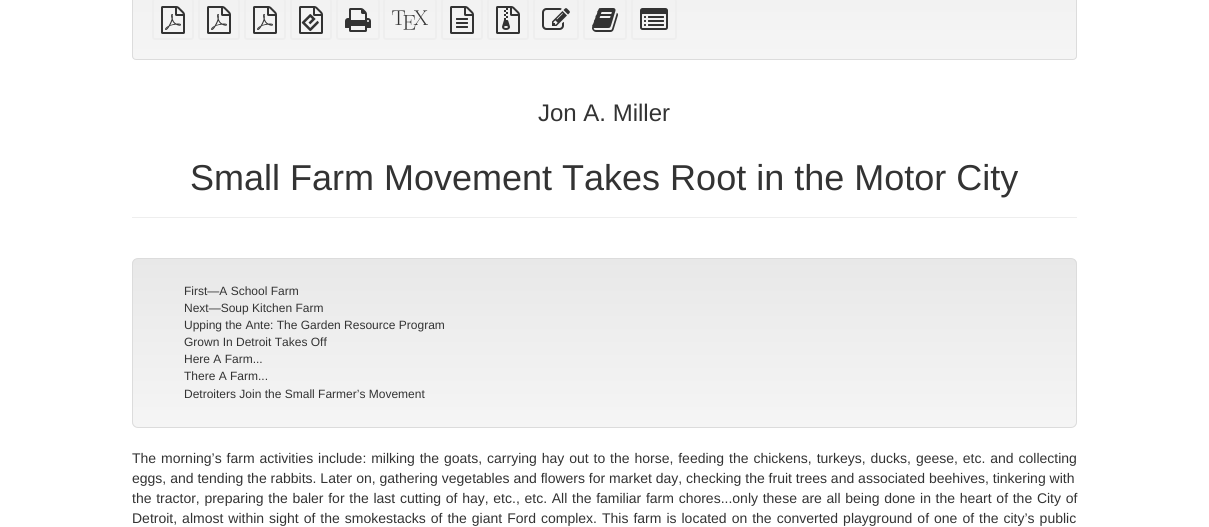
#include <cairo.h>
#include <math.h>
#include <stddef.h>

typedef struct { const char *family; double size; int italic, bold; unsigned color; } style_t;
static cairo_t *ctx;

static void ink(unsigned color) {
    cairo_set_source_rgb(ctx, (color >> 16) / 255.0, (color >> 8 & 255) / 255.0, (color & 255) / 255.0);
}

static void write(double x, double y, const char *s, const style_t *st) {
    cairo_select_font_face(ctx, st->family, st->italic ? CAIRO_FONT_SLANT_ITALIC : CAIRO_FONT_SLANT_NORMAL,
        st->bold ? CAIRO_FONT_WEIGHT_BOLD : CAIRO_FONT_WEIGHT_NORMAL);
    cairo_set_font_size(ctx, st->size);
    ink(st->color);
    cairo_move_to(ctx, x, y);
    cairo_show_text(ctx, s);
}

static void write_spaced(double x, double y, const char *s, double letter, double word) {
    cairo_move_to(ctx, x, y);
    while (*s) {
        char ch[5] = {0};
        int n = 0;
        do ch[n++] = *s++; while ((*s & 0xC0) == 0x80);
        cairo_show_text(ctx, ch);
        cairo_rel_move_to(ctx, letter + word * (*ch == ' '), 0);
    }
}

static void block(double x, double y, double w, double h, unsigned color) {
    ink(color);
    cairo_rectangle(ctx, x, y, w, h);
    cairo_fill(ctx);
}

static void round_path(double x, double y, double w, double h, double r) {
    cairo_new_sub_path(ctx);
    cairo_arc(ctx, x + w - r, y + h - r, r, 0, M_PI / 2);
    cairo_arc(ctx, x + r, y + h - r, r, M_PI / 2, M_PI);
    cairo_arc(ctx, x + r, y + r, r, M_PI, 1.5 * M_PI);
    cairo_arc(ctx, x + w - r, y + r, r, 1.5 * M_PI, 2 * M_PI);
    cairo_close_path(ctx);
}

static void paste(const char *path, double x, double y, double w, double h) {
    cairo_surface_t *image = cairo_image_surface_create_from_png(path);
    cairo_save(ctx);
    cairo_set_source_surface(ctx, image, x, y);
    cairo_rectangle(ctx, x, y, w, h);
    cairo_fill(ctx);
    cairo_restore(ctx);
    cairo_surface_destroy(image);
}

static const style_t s1 = {"Liberation Sans", 24, 0, 0, 0x333333};
static const style_t s2 = {"Liberation Sans", 36, 0, 0, 0x333333};
static const style_t s3 = {"Liberation Sans", 12, 0, 0, 0x333333};
static const style_t s4 = {"Liberation Sans", 14, 0, 0, 0x333333};

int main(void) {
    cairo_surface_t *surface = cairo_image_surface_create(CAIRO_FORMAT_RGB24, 1209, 527);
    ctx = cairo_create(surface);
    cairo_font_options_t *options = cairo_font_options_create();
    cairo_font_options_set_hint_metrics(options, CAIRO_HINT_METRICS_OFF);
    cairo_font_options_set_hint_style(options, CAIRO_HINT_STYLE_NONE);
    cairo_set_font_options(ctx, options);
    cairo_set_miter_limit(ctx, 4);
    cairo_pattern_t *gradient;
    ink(0xffffff);
    cairo_paint(ctx);
    cairo_save(ctx);
    round_path(132, -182, 945, 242, 4);
    cairo_clip(ctx);
    gradient = cairo_pattern_create_linear(605, -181, 605, 59);
    cairo_pattern_add_color_stop_rgba(gradient, 0, 0.91, 0.91, 0.91, 1);
    cairo_pattern_add_color_stop_rgba(gradient, 1, 0.961, 0.961, 0.961, 1);
    cairo_set_source(ctx, gradient);
    cairo_pattern_destroy(gradient);
    cairo_rectangle(ctx, 132, 0, 945, 59);
    cairo_fill(ctx);
    cairo_restore(ctx);
    round_path(132.5, -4.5, 944, 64, 3.5);
    ink(0xdcdcdc);
    cairo_set_line_width(ctx, 1);
    cairo_stroke(ctx);
    round_path(153, -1, 40, 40, 2);
    ink(0xeeeeee);
    cairo_set_line_width(ctx, 2);
    cairo_stroke(ctx);
    paste("pic1.png", 161, 6, 24, 28);
    round_path(199, -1, 40, 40, 2);
    cairo_stroke(ctx);
    paste("pic1.png", 207, 6, 24, 28);
    round_path(245, -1, 40, 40, 2);
    cairo_stroke(ctx);
    paste("pic1.png", 253, 6, 24, 28);
    round_path(291, -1, 40, 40, 2);
    cairo_stroke(ctx);
    paste("pic2.png", 299, 6, 24, 28);
    round_path(337, -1, 42, 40, 2);
    cairo_stroke(ctx);
    paste("pic3.png", 345, 8, 26, 24);
    round_path(384, -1, 52, 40, 2);
    cairo_stroke(ctx);
    paste("pic4.png", 392, 10, 36, 20);
    round_path(442, -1, 40, 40, 2);
    cairo_stroke(ctx);
    paste("pic5.png", 450, 6, 24, 28);
    round_path(488, -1, 40, 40, 2);
    cairo_stroke(ctx);
    paste("pic6.png", 496, 6, 24, 28);
    round_path(534, -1, 44, 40, 2);
    cairo_stroke(ctx);
    paste("pic7.png", 542, 8, 28, 22);
    round_path(584, -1, 42, 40, 2);
    cairo_stroke(ctx);
    paste("pic8.png", 592, 8, 26, 24);
    round_path(632, -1, 44, 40, 2);
    cairo_stroke(ctx);
    paste("pic9.png", 640, 8, 28, 22);
    block(132, 217, 945, 1, 0xeeeeee);
    write(538, 121, "Jon A. Miller", &s1);
    write(190, 190, "Small Farm Movement Takes Root in the Motor City", &s2);
    cairo_save(ctx);
    round_path(132, 258, 945, 170, 6);
    cairo_clip(ctx);
    gradient = cairo_pattern_create_linear(605, 259, 605, 427);
    cairo_pattern_add_color_stop_rgba(gradient, 0, 0.91, 0.91, 0.91, 1);
    cairo_pattern_add_color_stop_rgba(gradient, 1, 0.961, 0.961, 0.961, 1);
    cairo_set_source(ctx, gradient);
    cairo_pattern_destroy(gradient);
    cairo_rectangle(ctx, 132, 259, 945, 168);
    cairo_fill(ctx);
    cairo_restore(ctx);
    round_path(132.5, 258.5, 944, 169, 5.5);
    ink(0xdcdcdc);
    cairo_set_line_width(ctx, 1);
    cairo_stroke(ctx);
    write(184, 295, "First—A School Farm", &s3);
    write(184, 312, "Next—Soup Kitchen Farm", &s3);
    write(184, 329, "Upping the Ante: The Garden Resource Program", &s3);
    write(184, 346, "Grown In Detroit Takes Off", &s3);
    write(184, 363, "Here A Farm...", &s3);
    write(184, 380, "There A Farm...", &s3);
    write(184, 398, "Detroiters Join the Small Farmer’s Movement", &s3);
    cairo_set_font_size(ctx, 14);
    write_spaced(132, 463, "The morning’s farm activities include: milking the goats, carrying hay out to the horse, feeding the chickens, turkeys, ducks, geese, etc. and collecting", 0, 1);
    write(132, 483, "eggs, and tending the rabbits. Later on, gathering vegetables and flowers for market day, checking the fruit trees and associated beehives, tinkering with", &s4);
    write_spaced(132, 503, "the tractor, preparing the baler for the last cutting of hay, etc., etc. All the familiar farm chores...only these are all being done in the heart of the City of", 0, 0.8);
    write_spaced(132, 523, "Detroit, almost within sight of the smokestacks of the giant Ford complex. This farm is located on the converted playground of one of the city’s public", 0, 1.1);
    cairo_surface_write_to_png(surface, "screenshot.png");
    cairo_font_options_destroy(options);
    cairo_destroy(ctx);
    cairo_surface_destroy(surface);
    return 0;
}
